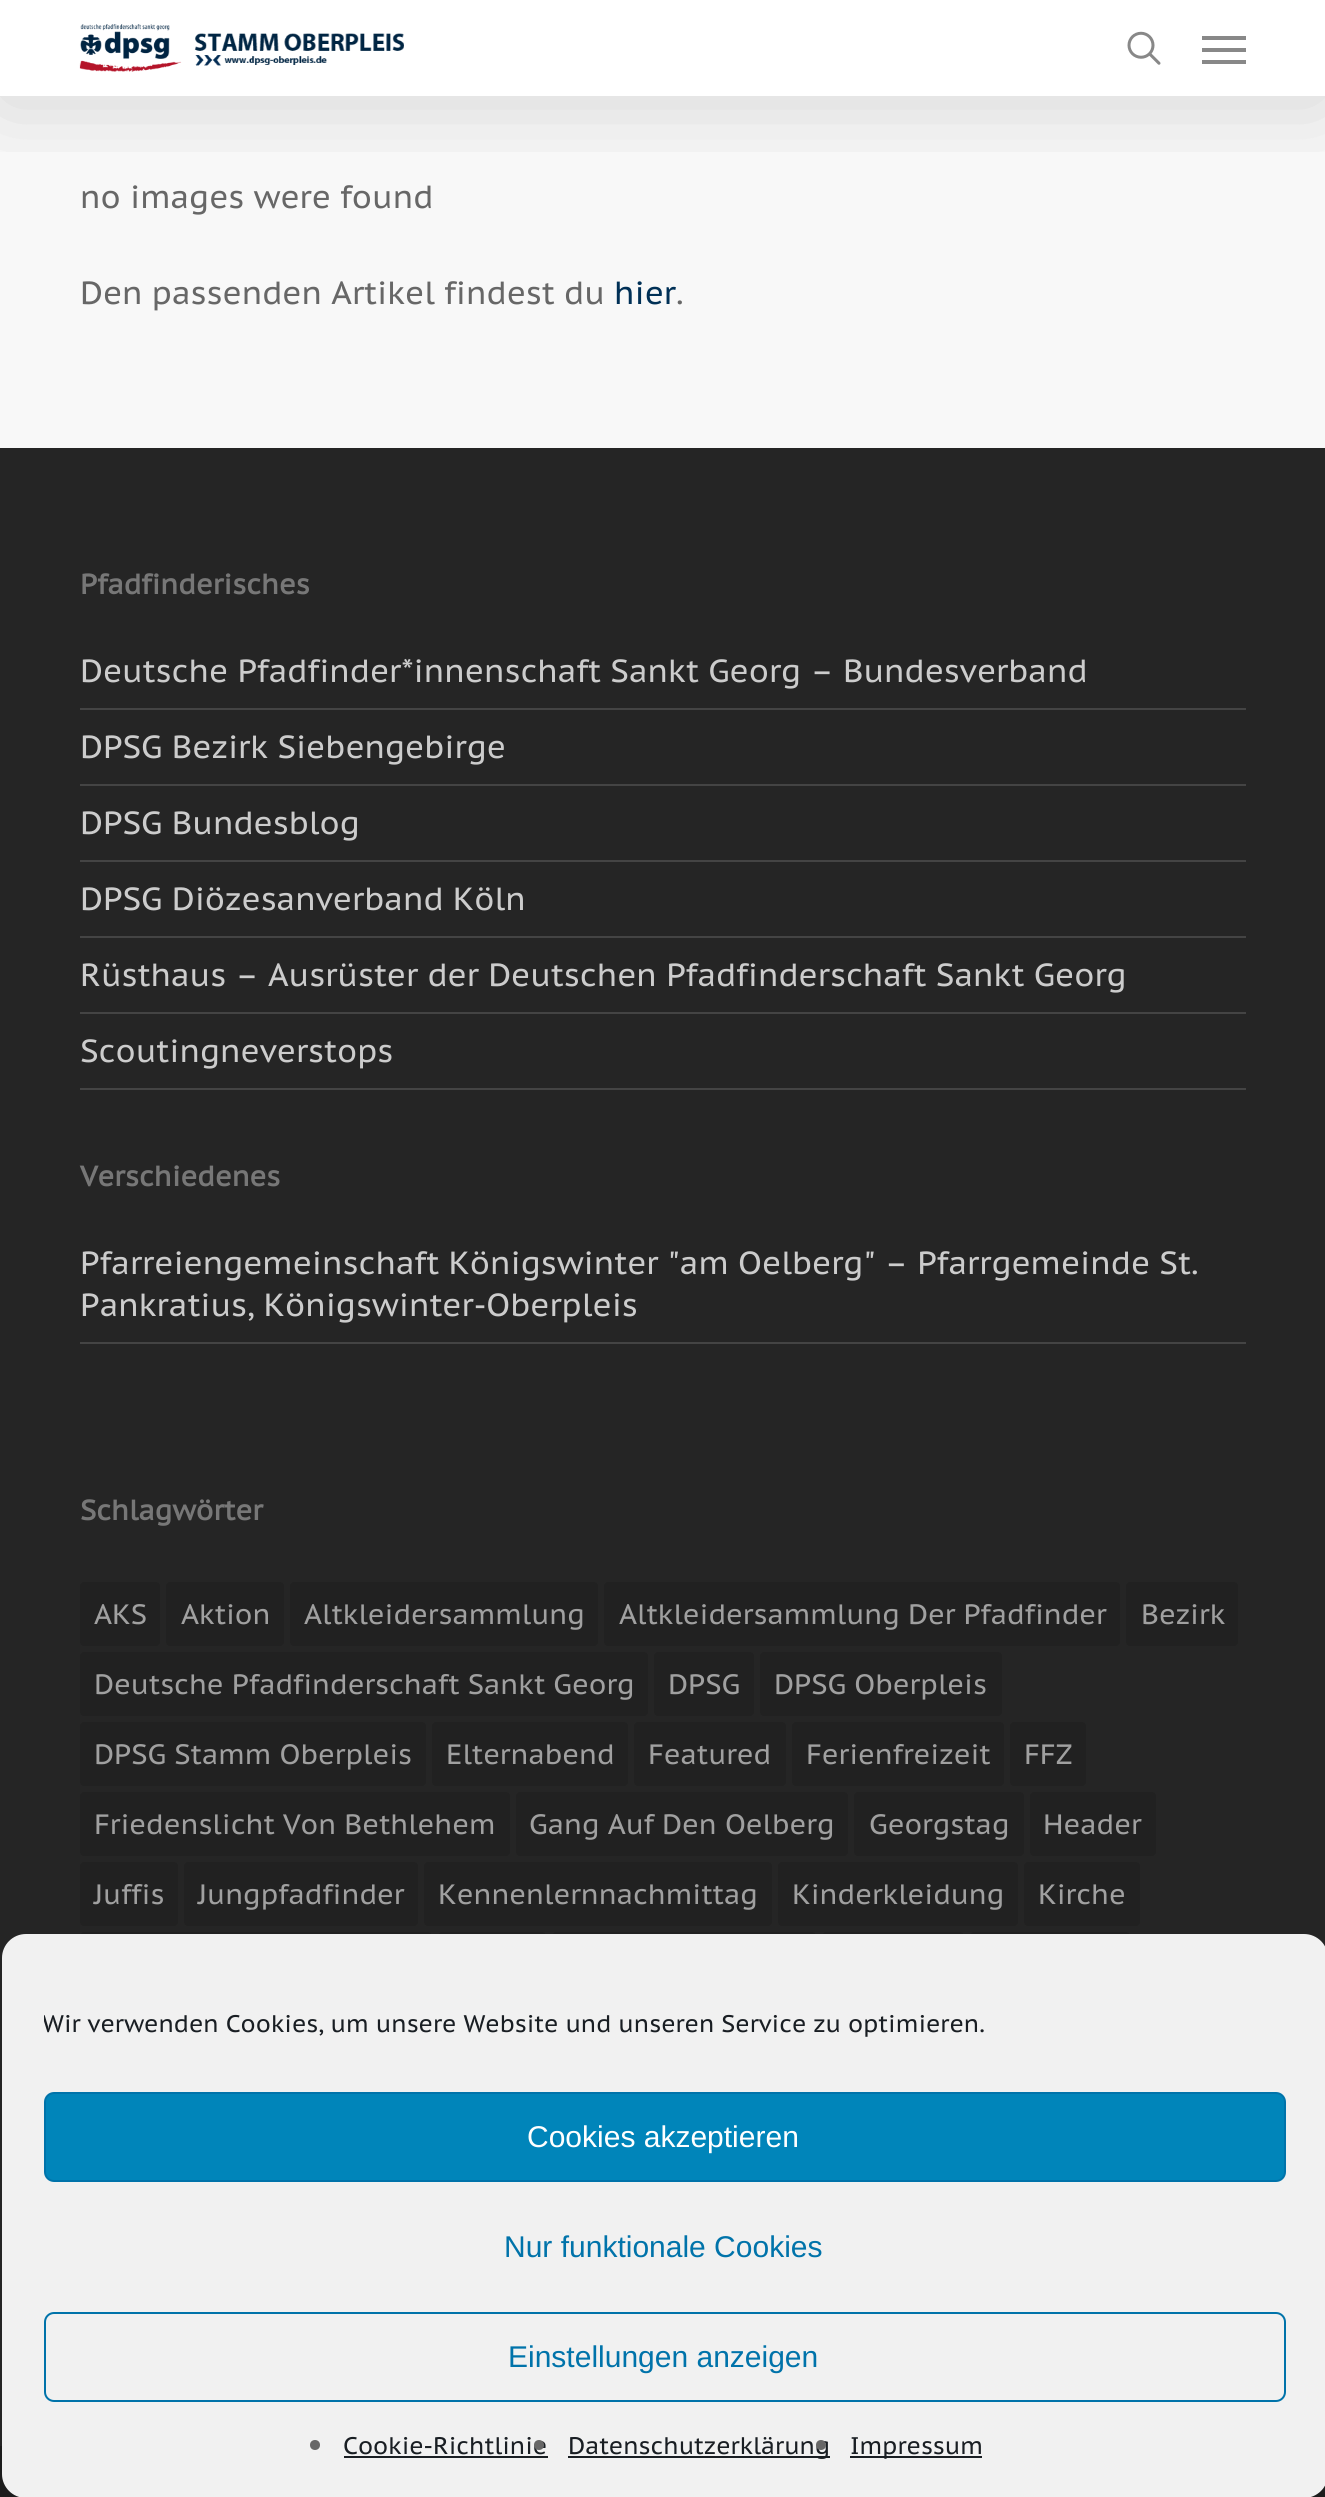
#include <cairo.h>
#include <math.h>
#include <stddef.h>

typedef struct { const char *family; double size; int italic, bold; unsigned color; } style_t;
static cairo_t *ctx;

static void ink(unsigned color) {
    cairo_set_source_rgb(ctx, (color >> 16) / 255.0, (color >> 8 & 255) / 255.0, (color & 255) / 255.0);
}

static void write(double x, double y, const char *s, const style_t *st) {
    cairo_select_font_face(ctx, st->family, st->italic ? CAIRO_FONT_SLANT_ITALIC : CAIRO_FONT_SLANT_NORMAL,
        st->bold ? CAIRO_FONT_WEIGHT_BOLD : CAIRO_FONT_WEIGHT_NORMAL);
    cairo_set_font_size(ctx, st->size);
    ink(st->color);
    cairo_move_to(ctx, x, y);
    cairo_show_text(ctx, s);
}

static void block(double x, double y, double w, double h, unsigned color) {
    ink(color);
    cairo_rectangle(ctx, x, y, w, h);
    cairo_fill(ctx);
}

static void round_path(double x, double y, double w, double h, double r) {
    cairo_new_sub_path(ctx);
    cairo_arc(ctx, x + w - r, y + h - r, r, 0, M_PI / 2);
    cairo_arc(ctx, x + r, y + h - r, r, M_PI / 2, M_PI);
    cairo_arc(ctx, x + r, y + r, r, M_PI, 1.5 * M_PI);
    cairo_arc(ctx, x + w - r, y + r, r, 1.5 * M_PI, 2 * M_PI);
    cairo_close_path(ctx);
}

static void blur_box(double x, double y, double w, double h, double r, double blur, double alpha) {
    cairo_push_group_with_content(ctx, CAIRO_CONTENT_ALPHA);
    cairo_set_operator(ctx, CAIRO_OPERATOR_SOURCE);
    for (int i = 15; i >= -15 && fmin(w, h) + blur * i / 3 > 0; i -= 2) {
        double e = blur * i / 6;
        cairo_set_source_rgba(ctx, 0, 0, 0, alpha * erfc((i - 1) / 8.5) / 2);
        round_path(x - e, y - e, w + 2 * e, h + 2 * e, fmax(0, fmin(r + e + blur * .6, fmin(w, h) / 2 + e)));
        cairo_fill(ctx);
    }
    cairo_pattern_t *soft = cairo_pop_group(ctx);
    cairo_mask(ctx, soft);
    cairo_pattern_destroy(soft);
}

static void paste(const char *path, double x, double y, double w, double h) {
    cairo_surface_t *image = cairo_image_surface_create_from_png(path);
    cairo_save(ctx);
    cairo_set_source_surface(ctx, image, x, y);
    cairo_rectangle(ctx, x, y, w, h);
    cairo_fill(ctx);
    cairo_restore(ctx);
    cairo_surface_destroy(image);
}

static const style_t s1 = {"PT Sans Caption", 32, 0, 0, 0x676767};
static const style_t s2 = {"PT Sans Caption", 32, 0, 0, 0x003056};
static const style_t s3 = {"PT Sans Caption", 28, 0, 1, 0x777777};
static const style_t s4 = {"PT Sans Caption", 32, 0, 0, 0xcccccc};
static const style_t s5 = {"PT Sans Caption", 28, 0, 0, 0xa0a0a0};
static const style_t s6 = {"PT Sans Caption", 24, 0, 0, 0x191e23};
static const style_t s7 = {"Liberation Sans", 30, 0, 0, 0xffffff};
static const style_t s8 = {"Liberation Sans", 30, 0, 0, 0x0073aa};

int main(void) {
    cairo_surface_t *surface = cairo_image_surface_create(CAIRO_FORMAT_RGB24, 1325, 2497);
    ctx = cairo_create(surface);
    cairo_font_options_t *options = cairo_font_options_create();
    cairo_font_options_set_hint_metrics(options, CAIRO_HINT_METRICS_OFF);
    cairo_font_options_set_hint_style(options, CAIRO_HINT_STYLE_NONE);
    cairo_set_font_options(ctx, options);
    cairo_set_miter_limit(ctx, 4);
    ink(0xffffff);
    cairo_paint(ctx);
    block(0, 96, 1325, 352, 0xf8f8f8);
    cairo_save(ctx);
    cairo_rectangle(ctx, 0, 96, 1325, 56);
    cairo_clip(ctx);
    ink(0x000000);
    blur_box(0, 6, 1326, 96, 0, 45, 0.15);
    cairo_restore(ctx);
    paste("pic1.png", 79, 24, 325, 48);
    paste("pic2.png", 1127, 31, 34, 34);
    block(1202, 36, 44, 4, 0x888888);
    block(1202, 60, 44, 4, 0x888888);
    block(1202, 48, 44, 4, 0x888888);
    write(80, 208, "no images were found", &s1);
    write(80, 304, "Den passenden Artikel findest du", &s1);
    write(614, 304, "hier", &s2);
    write(676, 304, ".", &s1);
    block(0, 448, 1325, 1998, 0x252525);
    write(80, 594, "Pfadfinderisches", &s3);
    block(80, 708, 1166, 2, 0x444444);
    write(80, 682, "Deutsche Pfadfinder*innenschaft Sankt Georg – Bundesverband", &s4);
    block(80, 784, 1166, 2, 0x444444);
    write(80, 758, "DPSG Bezirk Siebengebirge", &s4);
    block(80, 860, 1166, 2, 0x444444);
    write(80, 834, "DPSG Bundesblog", &s4);
    block(80, 936, 1166, 2, 0x444444);
    write(80, 910, "DPSG Diözesanverband Köln", &s4);
    block(80, 1012, 1166, 2, 0x444444);
    write(80, 986, "Rüsthaus – Ausrüster der Deutschen Pfadfinderschaft Sankt Georg", &s4);
    block(80, 1088, 1166, 2, 0x444444);
    write(80, 1062, "Scoutingneverstops", &s4);
    write(80, 1186, "Verschiedenes", &s3);
    block(80, 1342, 1166, 2, 0x444444);
    write(80, 1274, "Pfarreiengemeinschaft Königswinter \"am Oelberg\" – Pfarrgemeinde St.", &s4);
    write(80, 1316, "Pankratius, Königswinter-Oberpleis", &s4);
    write(80, 1520, "Schlagwörter", &s3);
    ink(0x212121);
    round_path(80, 1582, 80, 64, 4);
    cairo_fill(ctx);
    write(94, 1624, "AKS", &s5);
    ink(0x212121);
    round_path(166, 1582, 118, 64, 4);
    cairo_fill(ctx);
    write(181, 1624, "Aktion", &s5);
    ink(0x212121);
    round_path(290, 1582, 308, 64, 4);
    cairo_fill(ctx);
    write(304, 1624, "Altkleidersammlung", &s5);
    ink(0x212121);
    round_path(604, 1582, 516, 64, 4);
    cairo_fill(ctx);
    write(619, 1624, "Altkleidersammlung Der Pfadfinder", &s5);
    ink(0x212121);
    round_path(1126, 1582, 112, 64, 4);
    cairo_fill(ctx);
    write(1141, 1624, "Bezirk", &s5);
    ink(0x212121);
    round_path(80, 1652, 568, 64, 4);
    cairo_fill(ctx);
    write(94, 1694, "Deutsche Pfadfinderschaft Sankt Georg", &s5);
    ink(0x212121);
    round_path(654, 1652, 100, 64, 4);
    cairo_fill(ctx);
    write(668, 1694, "DPSG", &s5);
    ink(0x212121);
    round_path(760, 1652, 242, 64, 4);
    cairo_fill(ctx);
    write(774, 1694, "DPSG Oberpleis", &s5);
    ink(0x212121);
    round_path(80, 1722, 346, 64, 4);
    cairo_fill(ctx);
    write(94, 1764, "DPSG Stamm Oberpleis", &s5);
    ink(0x212121);
    round_path(432, 1722, 196, 64, 4);
    cairo_fill(ctx);
    write(446, 1764, "Elternabend", &s5);
    ink(0x212121);
    round_path(634, 1722, 152, 64, 4);
    cairo_fill(ctx);
    write(648, 1764, "Featured", &s5);
    ink(0x212121);
    round_path(792, 1722, 212, 64, 4);
    cairo_fill(ctx);
    write(806, 1764, "Ferienfreizeit", &s5);
    ink(0x212121);
    round_path(1010, 1722, 76, 64, 4);
    cairo_fill(ctx);
    write(1024, 1764, "FFZ", &s5);
    ink(0x212121);
    round_path(80, 1792, 430, 64, 4);
    cairo_fill(ctx);
    write(94, 1834, "Friedenslicht Von Bethlehem", &s5);
    ink(0x212121);
    round_path(516, 1792, 332, 64, 4);
    cairo_fill(ctx);
    write(529, 1834, "Gang Auf Den Oelberg", &s5);
    ink(0x212121);
    round_path(854, 1792, 170, 64, 4);
    cairo_fill(ctx);
    write(869, 1834, "Georgstag", &s5);
    ink(0x212121);
    round_path(1030, 1792, 126, 64, 4);
    cairo_fill(ctx);
    write(1043, 1834, "Header", &s5);
    ink(0x212121);
    round_path(80, 1862, 98, 64, 4);
    cairo_fill(ctx);
    write(94, 1904, "Juffis", &s5);
    ink(0x212121);
    round_path(184, 1862, 234, 64, 4);
    cairo_fill(ctx);
    write(198, 1904, "Jungpfadfinder", &s5);
    ink(0x212121);
    round_path(424, 1862, 348, 64, 4);
    cairo_fill(ctx);
    write(438, 1904, "Kennenlernnachmittag", &s5);
    ink(0x212121);
    round_path(778, 1862, 240, 64, 4);
    cairo_fill(ctx);
    write(792, 1904, "Kinderkleidung", &s5);
    ink(0x212121);
    round_path(1024, 1862, 116, 64, 4);
    cairo_fill(ctx);
    write(1038, 1904, "Kirche", &s5);
    ink(0x212121);
    round_path(80, 1932, 352, 64, 4);
    cairo_fill(ctx);
    round_path(438, 1932, 108, 64, 4);
    cairo_fill(ctx);
    round_path(552, 1932, 264, 64, 4);
    cairo_fill(ctx);
    round_path(822, 1932, 142, 64, 4);
    cairo_fill(ctx);
    round_path(970, 1932, 160, 64, 4);
    cairo_fill(ctx);
    block(0, 2446, 1325, 51, 0x1c1c1c);
    ink(0xf1f1f1);
    round_path(3, 1935, 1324, 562, 23);
    cairo_fill_preserve(ctx);
    cairo_stroke(ctx);
    cairo_save(ctx);
    cairo_rectangle(ctx, 44, 2006, 1242, 46);
    cairo_clip(ctx);
    write(42, 2032, "Wir verwenden Cookies, um unsere Website und unseren Service zu optimieren.", &s6);
    cairo_restore(ctx);
    ink(0x0085ba);
    round_path(45, 2093, 1240, 88, 9);
    cairo_fill_preserve(ctx);
    ink(0x0073aa);
    cairo_stroke(ctx);
    write(527, 2147, "Cookies akzeptieren", &s7);
    write(504, 2257, "Nur funktionale Cookies", &s8);
    round_path(45, 2313, 1240, 88, 9);
    cairo_stroke(ctx);
    write(508, 2367, "Einstellungen anzeigen", &s8);
    ink(0x676767);
    cairo_new_path(ctx);
    cairo_arc(ctx, 315, 2445, 5, 0, 2 * M_PI);
    cairo_fill(ctx);
    write(343, 2454, "Cookie-Richtlinie", &s6);
    block(344, 2456, 204, 2, 0x191e23);
    ink(0x676767);
    cairo_new_path(ctx);
    cairo_arc(ctx, 539, 2445, 5, 0, 2 * M_PI);
    cairo_fill(ctx);
    block(568, 2456, 262, 2, 0x191e23);
    write(568, 2454, "Datenschutzerklärung", &s6);
    ink(0x676767);
    cairo_new_path(ctx);
    cairo_arc(ctx, 821, 2445, 5, 0, 2 * M_PI);
    cairo_fill(ctx);
    block(850, 2456, 132, 2, 0x191e23);
    write(850, 2454, "Impressum", &s6);
    cairo_surface_write_to_png(surface, "screenshot.png");
    cairo_font_options_destroy(options);
    cairo_destroy(ctx);
    cairo_surface_destroy(surface);
    return 0;
}
